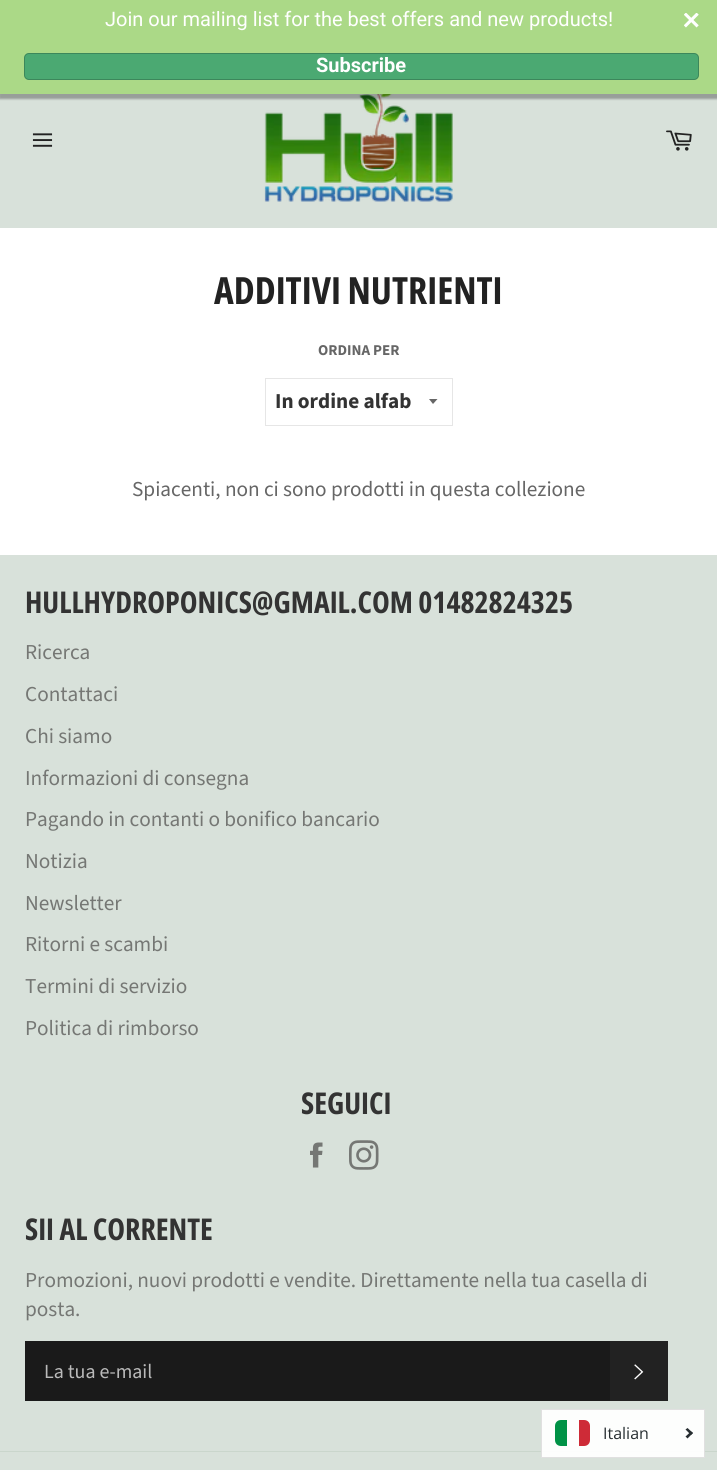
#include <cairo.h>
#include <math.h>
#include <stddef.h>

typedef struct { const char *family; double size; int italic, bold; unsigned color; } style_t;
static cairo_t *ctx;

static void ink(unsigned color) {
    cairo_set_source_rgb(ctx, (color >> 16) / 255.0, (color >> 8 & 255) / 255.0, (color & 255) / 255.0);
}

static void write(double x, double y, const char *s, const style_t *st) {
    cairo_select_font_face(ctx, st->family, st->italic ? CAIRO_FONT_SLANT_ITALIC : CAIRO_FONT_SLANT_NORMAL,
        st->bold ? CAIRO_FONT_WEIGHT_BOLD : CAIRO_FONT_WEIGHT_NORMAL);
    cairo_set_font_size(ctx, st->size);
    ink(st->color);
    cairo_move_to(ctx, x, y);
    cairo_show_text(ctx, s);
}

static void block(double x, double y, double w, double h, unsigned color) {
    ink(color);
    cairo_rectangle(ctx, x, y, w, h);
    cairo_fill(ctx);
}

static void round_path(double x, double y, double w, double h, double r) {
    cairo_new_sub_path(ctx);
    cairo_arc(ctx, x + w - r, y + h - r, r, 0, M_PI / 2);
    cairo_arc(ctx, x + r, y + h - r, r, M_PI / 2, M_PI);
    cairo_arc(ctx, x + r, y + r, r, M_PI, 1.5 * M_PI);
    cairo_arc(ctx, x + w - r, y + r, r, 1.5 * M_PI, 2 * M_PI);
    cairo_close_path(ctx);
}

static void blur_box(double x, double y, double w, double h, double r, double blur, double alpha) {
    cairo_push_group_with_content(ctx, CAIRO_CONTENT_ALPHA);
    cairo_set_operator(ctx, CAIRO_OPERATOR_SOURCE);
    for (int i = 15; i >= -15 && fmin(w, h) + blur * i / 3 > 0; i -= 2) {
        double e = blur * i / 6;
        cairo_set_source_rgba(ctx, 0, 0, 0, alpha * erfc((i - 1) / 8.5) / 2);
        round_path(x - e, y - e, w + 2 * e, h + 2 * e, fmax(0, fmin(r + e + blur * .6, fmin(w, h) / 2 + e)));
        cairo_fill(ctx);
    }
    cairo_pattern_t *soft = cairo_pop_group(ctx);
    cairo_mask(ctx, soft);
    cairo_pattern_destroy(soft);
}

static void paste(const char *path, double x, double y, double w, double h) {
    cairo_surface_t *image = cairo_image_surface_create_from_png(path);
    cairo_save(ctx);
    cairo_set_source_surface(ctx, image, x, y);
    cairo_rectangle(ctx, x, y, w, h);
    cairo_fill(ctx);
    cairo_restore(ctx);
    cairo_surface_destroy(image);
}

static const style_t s1 = {"Roboto", 20, 0, 0, 0xffffff};
static const style_t s2 = {"Roboto", 20, 0, 1, 0xffffff};
static const style_t s3 = {"Open Sans Condensed", 37.5, 0, 1, 0x222222};
static const style_t s4 = {"Source Sans Pro", 15, 0, 1, 0x666666};
static const style_t s5 = {"Source Sans Pro", 21.25, 0, 1, 0x333333};
static const style_t s6 = {"Source Sans Pro", 21.25, 0, 0, 0x666666};
static const style_t s7 = {"Open Sans Condensed", 30, 0, 1, 0x333333};
static const style_t s8 = {"Source Sans Pro", 21.25, 0, 0, 0x757774};
static const style_t s9 = {"Source Sans Pro", 20, 0, 0, 0xbababa};
static const style_t s10 = {"Open Sans", 16, 0, 0, 0x272e31};

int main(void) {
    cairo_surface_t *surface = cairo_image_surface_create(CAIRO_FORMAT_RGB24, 717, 1470);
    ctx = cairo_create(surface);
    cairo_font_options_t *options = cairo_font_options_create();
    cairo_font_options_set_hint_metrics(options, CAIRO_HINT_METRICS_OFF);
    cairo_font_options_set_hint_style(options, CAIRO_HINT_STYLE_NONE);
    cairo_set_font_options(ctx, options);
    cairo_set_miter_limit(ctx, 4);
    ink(0xffffff);
    cairo_paint(ctx);
    block(0, 94, 717, 134, 0xd8e1da);
    paste("pic3.png", 264, 94, 189, 108);
    ink(0x000000);
    blur_box(-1, 3, 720, 96, 0, 1, 0.3);
    block(0, 0, 717, 94, 0xabd987);
    write(105, 26, "Join our mailing list for the best offers and new products!", &s1);
    ink(0x4ba972);
    round_path(24, 53, 675, 27, 5);
    cairo_fill(ctx);
    round_path(24.5, 53.5, 674, 26, 4.5);
    cairo_set_source_rgba(ctx, 0, 0, 0, 0.2);
    cairo_set_line_width(ctx, 1);
    cairo_stroke(ctx);
    write(316, 72, "Subscribe", &s2);
    paste("pic1.png", 684, 13, 15, 15);
    paste("pic2.png", 32, 133, 21, 14);
    paste("pic4.png", 666, 130, 26, 21);
    write(214, 304, "ADDITIVI NUTRIENTI", &s3);
    write(318, 355, "ORDINA PER", &s4);
    cairo_new_path(ctx);
    cairo_move_to(ctx, 429, 399);
    cairo_line_to(ctx, 433, 404);
    cairo_line_to(ctx, 437.5, 399);
    cairo_close_path(ctx);
    cairo_fill(ctx);
    cairo_rectangle(ctx, 265.5, 378.5, 187, 47);
    ink(0xe6e6e6);
    cairo_stroke(ctx);
    write(275, 408, "In ordine alfab", &s5);
    write(132, 496, "Spiacenti, non ci sono prodotti in questa collezione", &s6);
    block(0, 555, 717, 915, 0xd8e1da);
    block(542, 1410, 162, 47, 0xfdfefd);
    write(25, 613, "HULLHYDROPONICS@GMAIL.COM 01482824325", &s7);
    write(25, 659, "Ricerca", &s8);
    write(25, 701, "Contattaci", &s8);
    write(25, 743, "Chi siamo", &s8);
    write(25, 785, "Informazioni di consegna", &s8);
    write(25, 826, "Pagando in contanti o bonifico bancario", &s8);
    write(25, 868, "Notizia", &s8);
    write(25, 910, "Newsletter", &s8);
    write(25, 951, "Ritorni e scambi", &s8);
    write(25, 993, "Termini di servizio", &s8);
    write(25, 1035, "Politica di rimborso", &s8);
    write(301, 1114, "SEGUICI", &s7);
    paste("pic5.png", 310, 1142, 13, 26);
    paste("pic6.png", 349, 1140, 30, 30);
    write(25, 1240, "SII AL CORRENTE", &s7);
    write(25, 1287, "Promozioni, nuovi prodotti e vendite. Direttamente nella tua casella di", &s8);
    write(25, 1316, "posta.", &s8);
    block(25, 1341, 585, 60, 0x1a1a1a);
    write(44, 1378, "La tua e-mail", &s9);
    block(610, 1341, 58, 60, 0x222222);
    paste("pic7.png", 634, 1364, 10, 16);
    block(0, 1451, 717, 1, 0xcad6cc);
    block(541, 1451, 164, 1, 0xfcfdfc);
    cairo_rectangle(ctx, 541.5, 1409.5, 163, 48);
    ink(0xe0e0e0);
    cairo_stroke(ctx);
    ink(0x009246);
    cairo_new_path(ctx);
    cairo_move_to(ctx, 561, 1420);
    cairo_line_to(ctx, 567, 1420);
    cairo_line_to(ctx, 567, 1446);
    cairo_line_to(ctx, 561, 1446);
    cairo_curve_to(ctx, 557.5, 1446, 555, 1443.5, 555, 1440);
    cairo_line_to(ctx, 555, 1426);
    cairo_curve_to(ctx, 555, 1422.5, 557.5, 1420, 561, 1420);
    cairo_close_path(ctx);
    cairo_fill(ctx);
    ink(0xce2b37);
    cairo_new_path(ctx);
    cairo_move_to(ctx, 579, 1420);
    cairo_line_to(ctx, 584, 1420);
    cairo_curve_to(ctx, 587.5, 1420, 590, 1422.5, 590, 1426);
    cairo_line_to(ctx, 590, 1440);
    cairo_curve_to(ctx, 590, 1443.5, 587.5, 1446, 584, 1446);
    cairo_line_to(ctx, 579, 1446);
    cairo_close_path(ctx);
    cairo_fill(ctx);
    write(603, 1439, "Italian", &s10);
    cairo_new_path(ctx);
    cairo_move_to(ctx, 687.5, 1428);
    cairo_line_to(ctx, 693, 1433);
    cairo_line_to(ctx, 691, 1435);
    cairo_line_to(ctx, 685.5, 1429.5);
    cairo_close_path(ctx);
    cairo_fill(ctx);
    cairo_new_path(ctx);
    cairo_move_to(ctx, 691, 1431.5);
    cairo_line_to(ctx, 693, 1433);
    cairo_line_to(ctx, 687.5, 1438.5);
    cairo_line_to(ctx, 685.5, 1436.5);
    cairo_close_path(ctx);
    cairo_fill(ctx);
    cairo_surface_write_to_png(surface, "screenshot.png");
    cairo_font_options_destroy(options);
    cairo_destroy(ctx);
    cairo_surface_destroy(surface);
    return 0;
}
